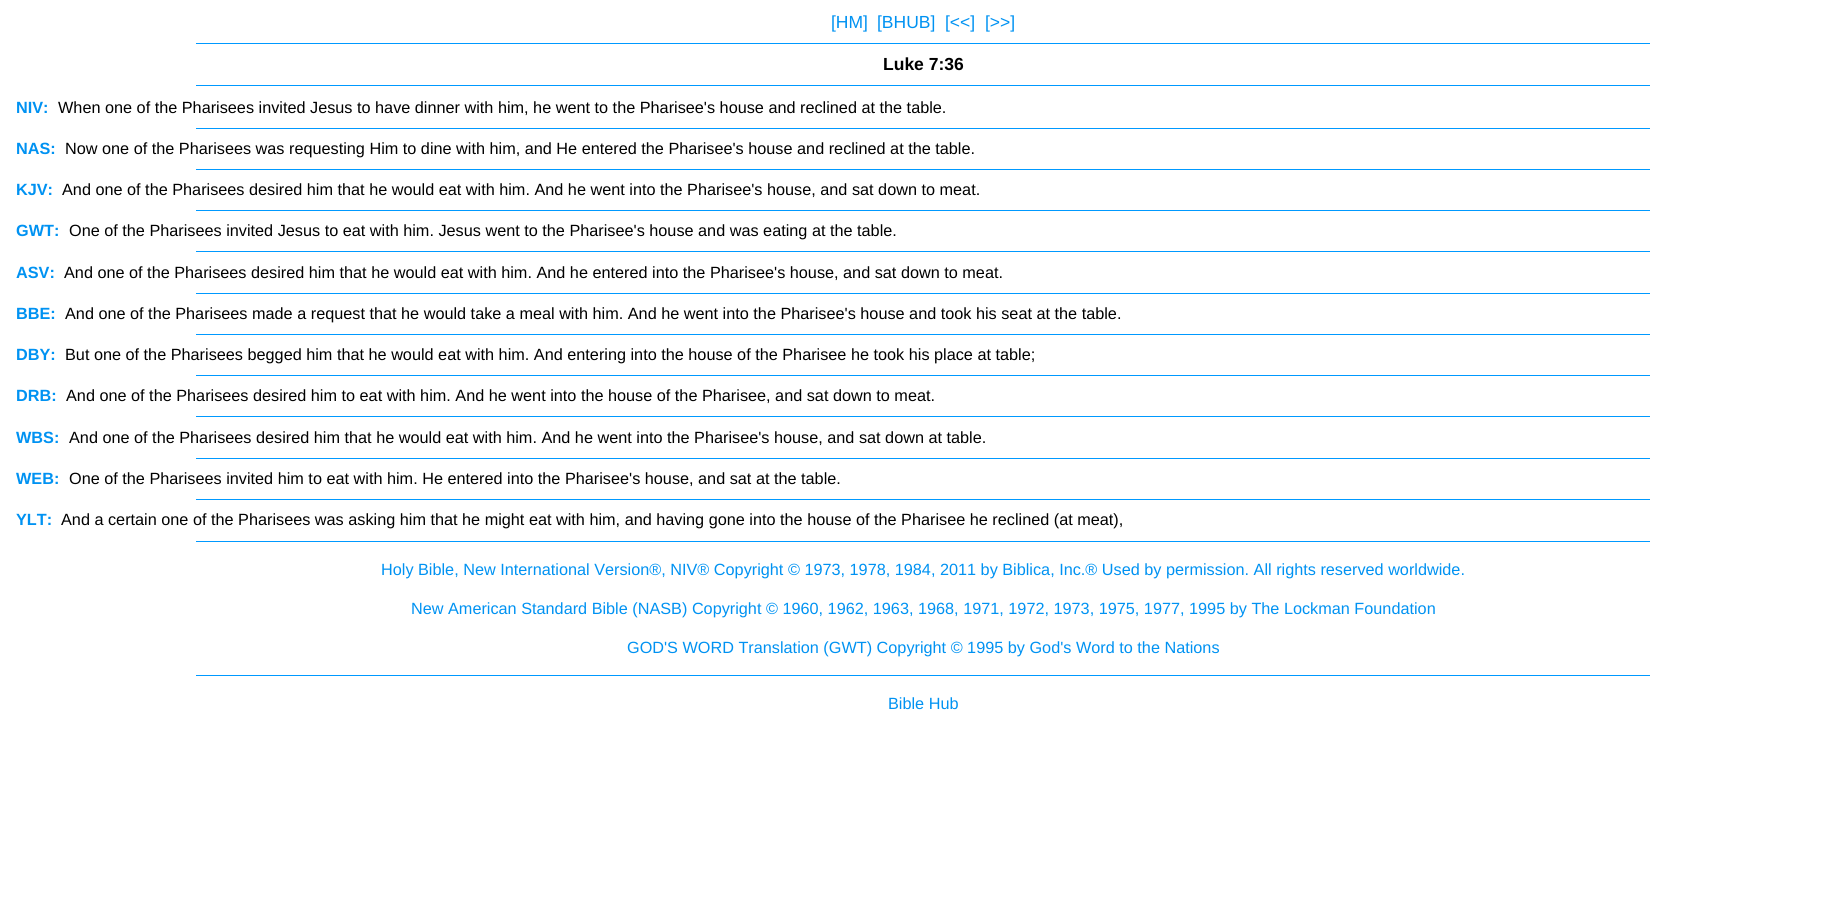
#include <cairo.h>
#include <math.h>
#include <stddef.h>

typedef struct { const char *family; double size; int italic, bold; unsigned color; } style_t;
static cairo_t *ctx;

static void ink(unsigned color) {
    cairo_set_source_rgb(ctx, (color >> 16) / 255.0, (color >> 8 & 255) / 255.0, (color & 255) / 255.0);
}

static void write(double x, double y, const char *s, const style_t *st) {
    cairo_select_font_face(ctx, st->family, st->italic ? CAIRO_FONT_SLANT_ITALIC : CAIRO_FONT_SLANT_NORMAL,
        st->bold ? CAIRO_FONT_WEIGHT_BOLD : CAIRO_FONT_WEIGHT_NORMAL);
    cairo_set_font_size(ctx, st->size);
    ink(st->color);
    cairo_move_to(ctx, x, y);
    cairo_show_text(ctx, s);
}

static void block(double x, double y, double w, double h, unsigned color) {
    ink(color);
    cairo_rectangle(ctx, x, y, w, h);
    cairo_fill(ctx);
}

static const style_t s1 = {"Liberation Sans", 17.5, 0, 0, 0x0092f2};
static const style_t s2 = {"Liberation Sans", 17.5, 0, 1, 0x000000};
static const style_t s3 = {"Liberation Sans", 16.25, 0, 1, 0x0092f2};
static const style_t s4 = {"Liberation Sans", 16.25, 0, 0, 0x000000};
static const style_t s5 = {"Liberation Sans", 16.25, 0, 0, 0x0092f2};

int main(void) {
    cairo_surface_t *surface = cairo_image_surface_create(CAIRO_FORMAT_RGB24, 1846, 917);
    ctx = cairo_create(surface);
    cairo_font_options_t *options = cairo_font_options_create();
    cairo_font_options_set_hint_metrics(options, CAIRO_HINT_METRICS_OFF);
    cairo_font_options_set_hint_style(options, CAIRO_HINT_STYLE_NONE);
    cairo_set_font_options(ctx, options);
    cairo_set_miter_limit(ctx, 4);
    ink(0xffffff);
    cairo_paint(ctx);
    write(831, 28, "[HM]", &s1);
    write(877, 28, "[BHUB]", &s1);
    write(945, 28, "[<<]", &s1);
    write(985, 28, "[>>]", &s1);
    block(196, 43, 1454, 1, 0x0099ff);
    write(883, 70, "Luke 7:36", &s2);
    block(196, 85, 1454, 1, 0x0099ff);
    write(16, 113, "NIV:", &s3);
    write(58, 113, "When one of the Pharisees invited Jesus to have dinner with him, he went to the Pharisee's house and reclined at the table.", &s4);
    block(196, 128, 1454, 1, 0x0099ff);
    write(16, 154, "NAS:", &s3);
    write(65, 154, "Now one of the Pharisees was requesting Him to dine with him, and He entered the Pharisee's house and reclined at the table.", &s4);
    block(196, 169, 1454, 1, 0x0099ff);
    write(16, 195, "KJV:", &s3);
    write(62, 195, "And one of the Pharisees desired him that he would eat with him. And he went into the Pharisee's house, and sat down to meat.", &s4);
    block(196, 210, 1454, 1, 0x0099ff);
    write(16, 236, "GWT:", &s3);
    write(69, 236, "One of the Pharisees invited Jesus to eat with him. Jesus went to the Pharisee's house and was eating at the table.", &s4);
    block(196, 251, 1454, 1, 0x0099ff);
    write(16, 278, "ASV:", &s3);
    write(64, 278, "And one of the Pharisees desired him that he would eat with him. And he entered into the Pharisee's house, and sat down to meat.", &s4);
    block(196, 293, 1454, 1, 0x0099ff);
    write(16, 319, "BBE:", &s3);
    write(65, 319, "And one of the Pharisees made a request that he would take a meal with him. And he went into the Pharisee's house and took his seat at the table.", &s4);
    block(196, 334, 1454, 1, 0x0099ff);
    write(16, 360, "DBY:", &s3);
    write(65, 360, "But one of the Pharisees begged him that he would eat with him. And entering into the house of the Pharisee he took his place at table;", &s4);
    block(196, 375, 1454, 1, 0x0099ff);
    write(16, 401, "DRB:", &s3);
    write(66, 401, "And one of the Pharisees desired him to eat with him. And he went into the house of the Pharisee, and sat down to meat.", &s4);
    block(196, 416, 1454, 1, 0x0099ff);
    write(16, 443, "WBS:", &s3);
    write(69, 443, "And one of the Pharisees desired him that he would eat with him. And he went into the Pharisee's house, and sat down at table.", &s4);
    block(196, 458, 1454, 1, 0x0099ff);
    write(16, 484, "WEB:", &s3);
    write(69, 484, "One of the Pharisees invited him to eat with him. He entered into the Pharisee's house, and sat at the table.", &s4);
    block(196, 499, 1454, 1, 0x0099ff);
    write(16, 525, "YLT:", &s3);
    write(61, 525, "And a certain one of the Pharisees was asking him that he might eat with him, and having gone into the house of the Pharisee he reclined (at meat),", &s4);
    block(196, 541, 1454, 1, 0x0099ff);
    write(381, 575, "Holy Bible, New International Version®, NIV® Copyright © 1973, 1978, 1984, 2011 by Biblica, Inc.® Used by permission. All rights reserved worldwide.", &s5);
    write(411, 614, "New American Standard Bible (NASB) Copyright © 1960, 1962, 1963, 1968, 1971, 1972, 1973, 1975, 1977, 1995 by The Lockman Foundation", &s5);
    write(627, 653, "GOD'S WORD Translation (GWT) Copyright © 1995 by God's Word to the Nations", &s5);
    block(196, 675, 1454, 1, 0x0099ff);
    write(888, 709, "Bible Hub", &s5);
    cairo_surface_write_to_png(surface, "screenshot.png");
    cairo_font_options_destroy(options);
    cairo_destroy(ctx);
    cairo_surface_destroy(surface);
    return 0;
}
